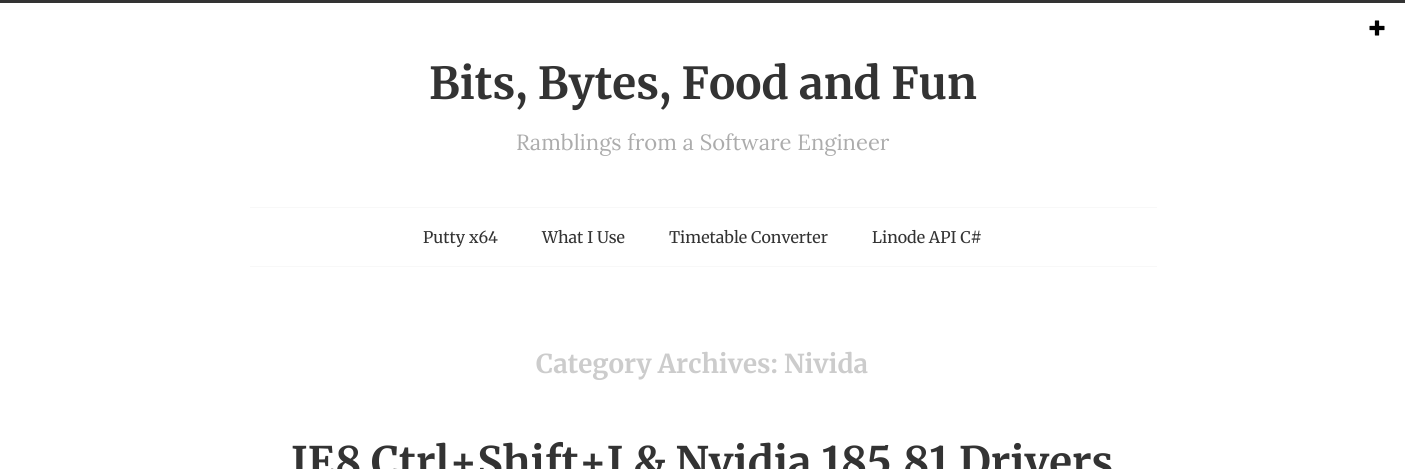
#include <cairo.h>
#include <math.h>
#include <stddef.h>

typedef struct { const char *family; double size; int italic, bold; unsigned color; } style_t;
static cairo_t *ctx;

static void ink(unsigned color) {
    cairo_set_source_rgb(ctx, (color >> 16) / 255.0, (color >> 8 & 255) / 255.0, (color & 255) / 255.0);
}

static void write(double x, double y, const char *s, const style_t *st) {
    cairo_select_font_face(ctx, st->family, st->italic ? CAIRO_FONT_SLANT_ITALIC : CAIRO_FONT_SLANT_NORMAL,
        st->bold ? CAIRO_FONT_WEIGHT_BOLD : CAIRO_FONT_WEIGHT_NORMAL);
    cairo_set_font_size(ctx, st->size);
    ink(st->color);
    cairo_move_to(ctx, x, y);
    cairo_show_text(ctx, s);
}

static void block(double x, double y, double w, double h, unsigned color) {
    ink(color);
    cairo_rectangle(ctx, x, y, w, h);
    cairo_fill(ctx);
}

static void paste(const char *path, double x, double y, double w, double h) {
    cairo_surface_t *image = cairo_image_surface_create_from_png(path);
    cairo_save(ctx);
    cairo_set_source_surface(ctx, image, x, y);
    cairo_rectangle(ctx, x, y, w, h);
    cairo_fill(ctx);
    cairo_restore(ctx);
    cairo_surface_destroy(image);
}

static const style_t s1 = {"Merriweather", 44, 0, 1, 0x333333};
static const style_t s2 = {"Lora", 22, 0, 0, 0xacacac};
static const style_t s3 = {"Merriweather", 16, 0, 0, 0x333333};
static const style_t s4 = {"Merriweather", 26, 0, 1, 0xcccccc};
static const style_t s5 = {"Merriweather", 42, 0, 1, 0x333333};

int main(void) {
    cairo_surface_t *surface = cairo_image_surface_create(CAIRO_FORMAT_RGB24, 1405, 469);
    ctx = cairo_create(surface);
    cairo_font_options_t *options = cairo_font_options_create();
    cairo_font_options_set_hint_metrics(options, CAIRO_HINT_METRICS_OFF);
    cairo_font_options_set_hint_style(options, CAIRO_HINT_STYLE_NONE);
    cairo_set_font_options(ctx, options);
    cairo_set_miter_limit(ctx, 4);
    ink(0xffffff);
    cairo_paint(ctx);
    block(0, 0, 1405, 3, 0x333333);
    write(429, 99, "Bits, Bytes, Food and Fun", &s1);
    write(516, 150, "Ramblings from a Software Engineer", &s2);
    block(250, 207, 907, 1, 0xf8f8f8);
    block(250, 266, 907, 1, 0xf8f8f8);
    write(423, 243, "Putty x64", &s3);
    write(542, 243, "What I Use", &s3);
    write(669, 243, "Timetable Converter", &s3);
    write(872, 243, "Linode API C#", &s3);
    paste("pic1.png", 1369, 20, 16, 16);
    write(536, 373, "Category Archives: Nivida", &s4);
    write(291, 477, "IE8 Ctrl+Shift+J & Nvidia 185.81 Drivers", &s5);
    cairo_surface_write_to_png(surface, "screenshot.png");
    cairo_font_options_destroy(options);
    cairo_destroy(ctx);
    cairo_surface_destroy(surface);
    return 0;
}
